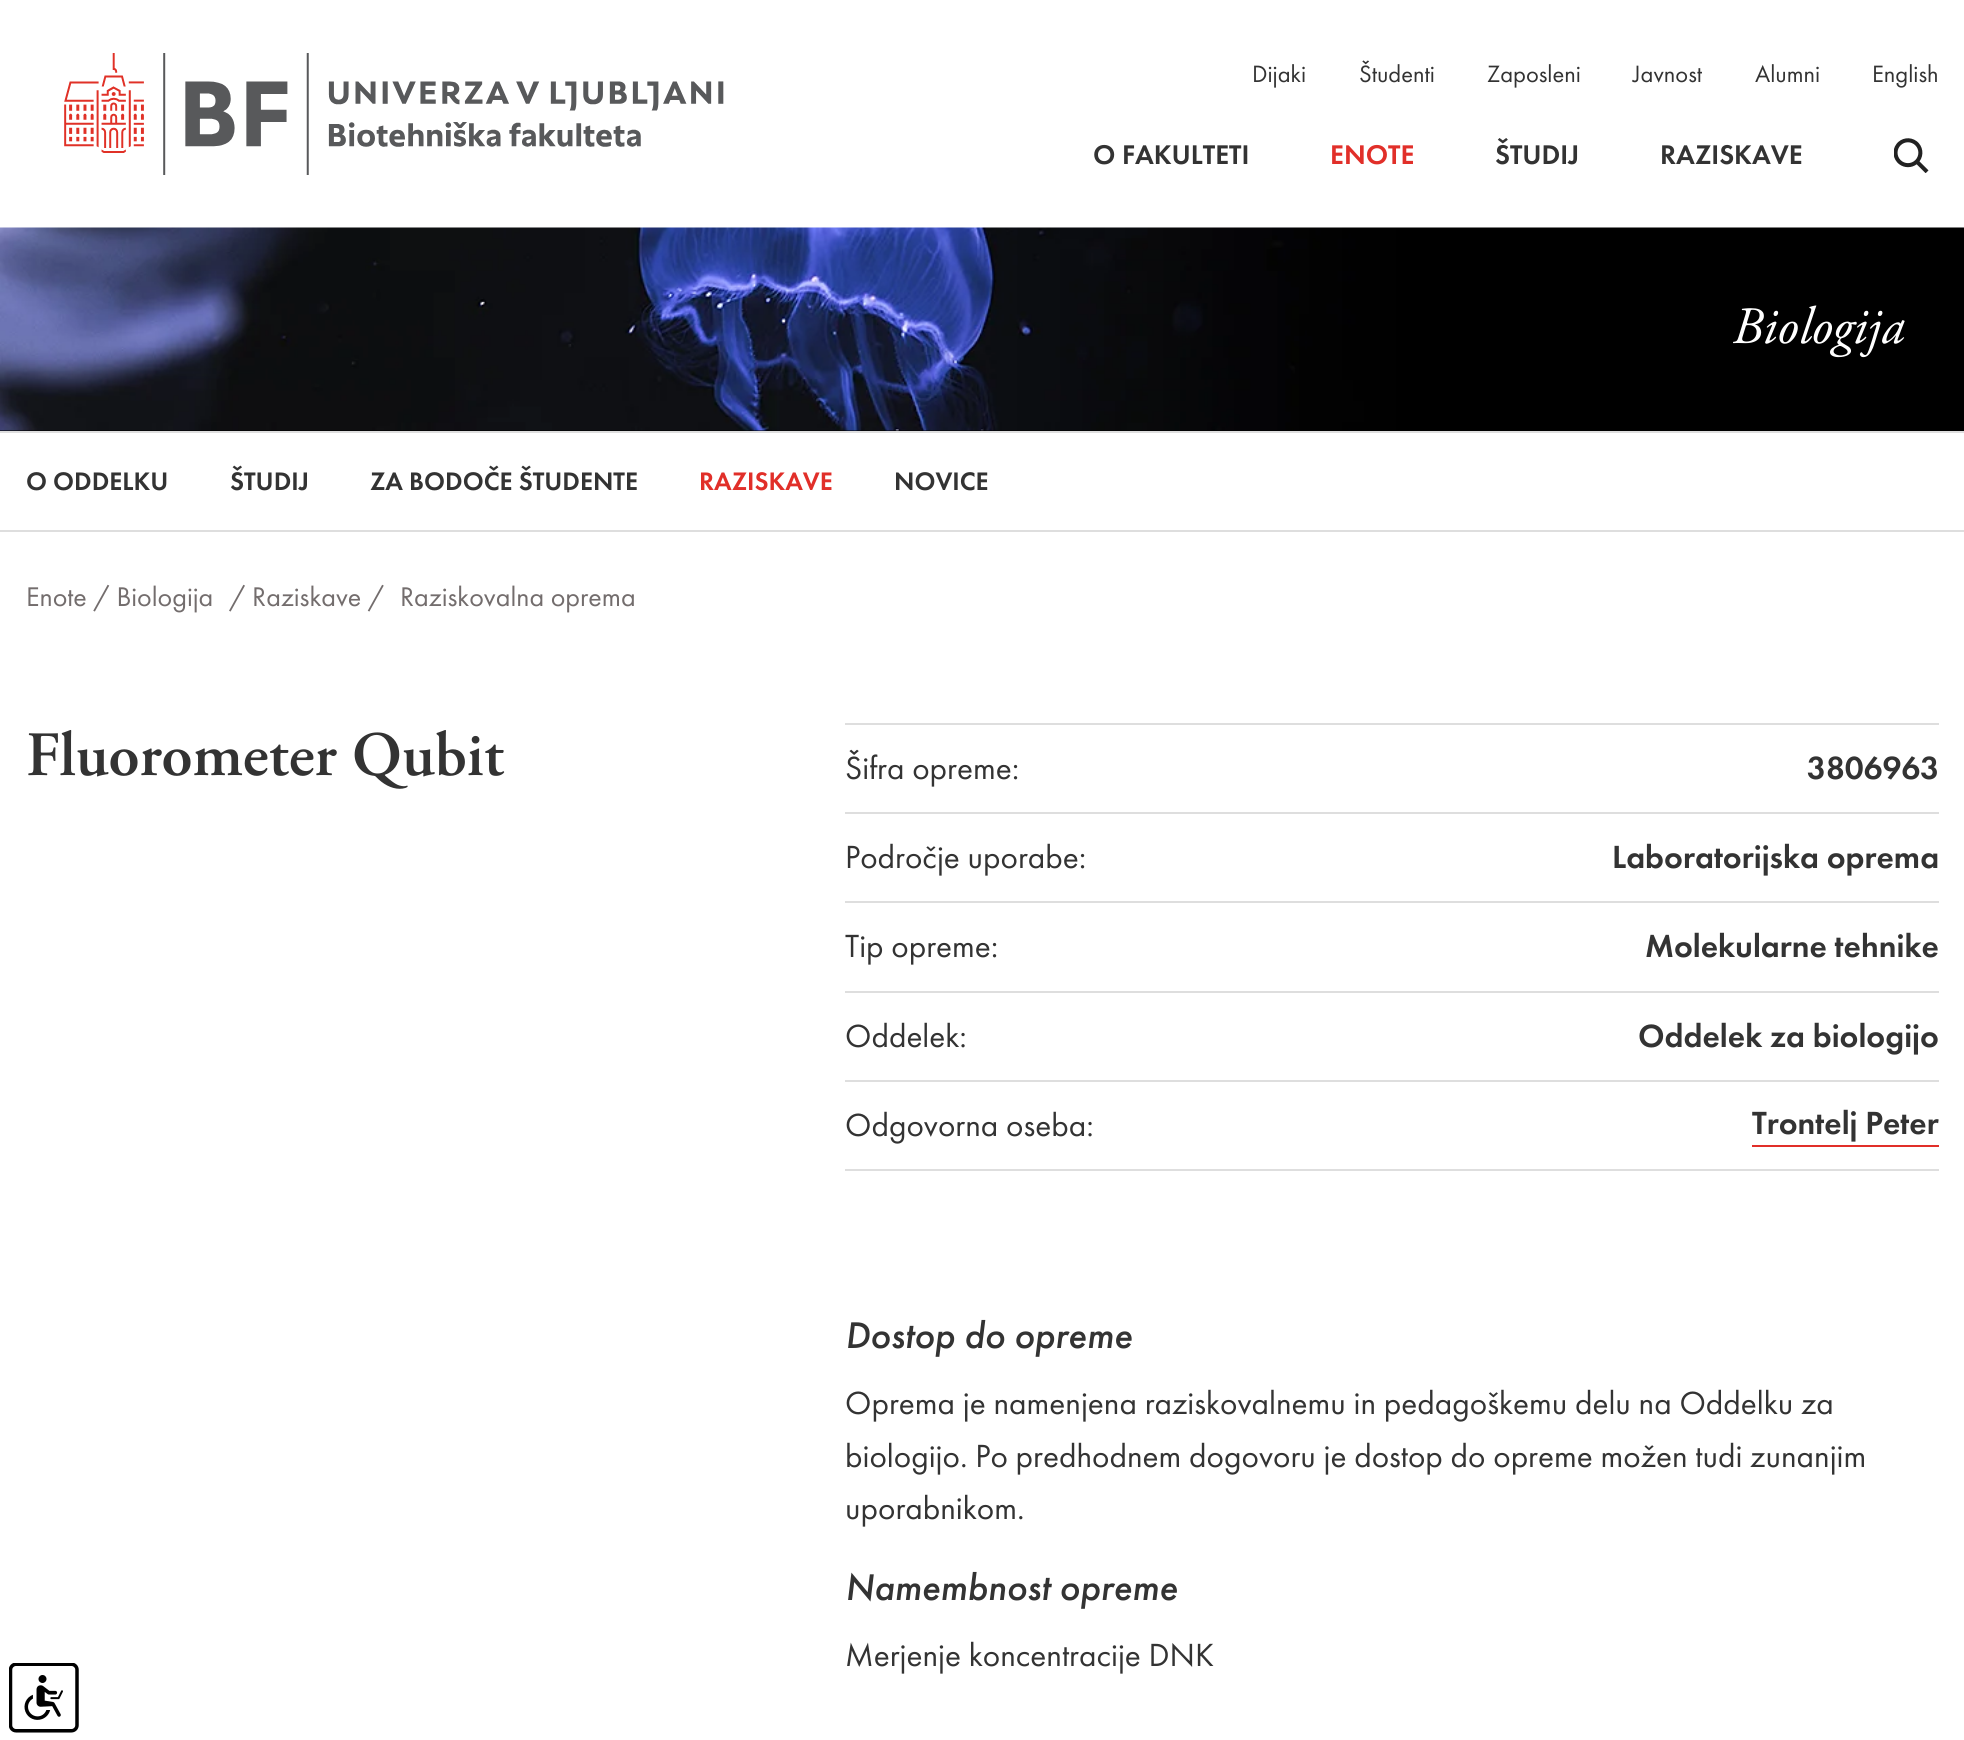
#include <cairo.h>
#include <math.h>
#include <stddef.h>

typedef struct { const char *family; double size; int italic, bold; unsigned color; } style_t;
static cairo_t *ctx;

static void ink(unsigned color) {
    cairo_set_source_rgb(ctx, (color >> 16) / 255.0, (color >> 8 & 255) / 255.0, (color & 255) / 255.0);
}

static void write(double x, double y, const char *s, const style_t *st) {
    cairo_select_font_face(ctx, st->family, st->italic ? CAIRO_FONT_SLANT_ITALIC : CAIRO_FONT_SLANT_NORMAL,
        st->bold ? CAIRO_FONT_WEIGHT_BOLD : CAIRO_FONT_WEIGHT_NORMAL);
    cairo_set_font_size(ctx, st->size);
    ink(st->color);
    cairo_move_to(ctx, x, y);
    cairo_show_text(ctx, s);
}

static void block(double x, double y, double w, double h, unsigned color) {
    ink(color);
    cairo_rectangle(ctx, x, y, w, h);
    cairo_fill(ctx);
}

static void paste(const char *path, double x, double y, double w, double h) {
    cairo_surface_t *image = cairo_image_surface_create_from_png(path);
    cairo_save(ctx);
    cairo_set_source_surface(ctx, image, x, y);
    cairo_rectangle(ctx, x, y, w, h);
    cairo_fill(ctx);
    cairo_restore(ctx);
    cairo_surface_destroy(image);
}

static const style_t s1 = {"Futura PT", 24.5, 0, 0, 0x333333};
static const style_t s2 = {"Futura PT Medium", 28, 0, 0, 0x333333};
static const style_t s3 = {"Futura PT Medium", 28, 0, 0, 0xe12f29};
static const style_t s4 = {"Adobe Garamond", 52.5, 1, 0, 0xffffff};
static const style_t s5 = {"Futura PT Medium", 26.25, 0, 0, 0x333333};
static const style_t s6 = {"Futura PT Medium", 26.25, 0, 0, 0xe12f29};
static const style_t s7 = {"Futura PT", 28, 0, 0, 0x736d6d};
static const style_t s8 = {"Adobe Garamond SemiBold", 63, 0, 0, 0x333333};
static const style_t s9 = {"Futura PT", 33.25, 0, 0, 0x333333};
static const style_t s10 = {"Futura PT Medium", 33.25, 0, 0, 0x333333};
static const style_t s11 = {"Futura PT Medium", 38.5, 1, 0, 0x333333};

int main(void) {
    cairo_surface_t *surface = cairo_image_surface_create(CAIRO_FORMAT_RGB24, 1964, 1740);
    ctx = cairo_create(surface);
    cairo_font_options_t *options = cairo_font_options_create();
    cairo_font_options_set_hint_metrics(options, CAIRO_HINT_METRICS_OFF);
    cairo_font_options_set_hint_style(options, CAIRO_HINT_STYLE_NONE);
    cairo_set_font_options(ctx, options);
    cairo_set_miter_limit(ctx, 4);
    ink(0xffffff);
    cairo_paint(ctx);
    paste("pic1.png", 64, 53, 660, 122);
    write(1252, 82, "Dijaki", &s1);
    write(1359, 82, "Študenti", &s1);
    write(1487, 82, "Zaposleni", &s1);
    write(1633, 82, "Javnost", &s1);
    write(1755, 82, "Alumni", &s1);
    write(1872, 82, "English", &s1);
    write(1093, 164, "O FAKULTETI", &s2);
    write(1330, 164, "ENOTE", &s3);
    write(1495, 164, "ŠTUDIJ", &s2);
    write(1660, 164, "RAZISKAVE", &s2);
    paste("pic2.png", 1894, 138, 35, 35);
    block(0, 430, 1964, 1, 0x000000);
    paste("pic3.png", 0, 227, 1964, 204);
    write(1732, 343, "Biologija", &s4);
    block(0, 431, 1964, 2, 0xdedede);
    block(0, 530, 1964, 2, 0xdedede);
    write(26, 490, "O ODDELKU", &s5);
    write(230, 490, "ŠTUDIJ", &s5);
    write(370, 490, "ZA BODOČE ŠTUDENTE", &s5);
    write(699, 490, "RAZISKAVE", &s6);
    write(894, 490, "NOVICE", &s5);
    write(26, 606, "Enote / Biologija", &s7);
    write(229, 606, "/ Raziskave /", &s7);
    write(400, 606, "Raziskovalna oprema", &s7);
    write(26, 775, "Fluorometer Qubit", &s8);
    block(845, 1169, 1094, 2, 0xdedede);
    block(845, 723, 1094, 2, 0xdedede);
    write(845, 779, "Šifra opreme:", &s9);
    write(1807, 779, "3806963", &s10);
    block(845, 812, 1094, 2, 0xdedede);
    write(845, 868, "Področje uporabe:", &s9);
    write(1612, 868, "Laboratorijska oprema", &s10);
    block(845, 901, 1094, 2, 0xdedede);
    write(845, 957, "Tip opreme:", &s9);
    write(1645, 957, "Molekularne tehnike", &s10);
    block(845, 991, 1094, 2, 0xdedede);
    write(845, 1047, "Oddelek:", &s9);
    write(1638, 1047, "Oddelek za biologijo", &s10);
    block(845, 1080, 1094, 2, 0xdedede);
    write(845, 1136, "Odgovorna oseba:", &s9);
    write(1752, 1134, "Trontelj Peter", &s10);
    block(1752, 1145, 187, 2, 0xe12f29);
    write(845, 1348, "Dostop do opreme", &s11);
    write(845, 1414, "Oprema je namenjena raziskovalnemu in pedagoškemu delu na Oddelku za", &s9);
    write(845, 1467, "biologijo. Po predhodnem dogovoru je dostop do opreme možen tudi zunanjim", &s9);
    write(845, 1519, "uporabnikom.", &s9);
    write(845, 1600, "Namembnost opreme", &s11);
    write(845, 1666, "Merjenje koncentracije DNK", &s9);
    paste("pic4.png", 9, 1663, 70, 70);
    cairo_surface_write_to_png(surface, "screenshot.png");
    cairo_font_options_destroy(options);
    cairo_destroy(ctx);
    cairo_surface_destroy(surface);
    return 0;
}
